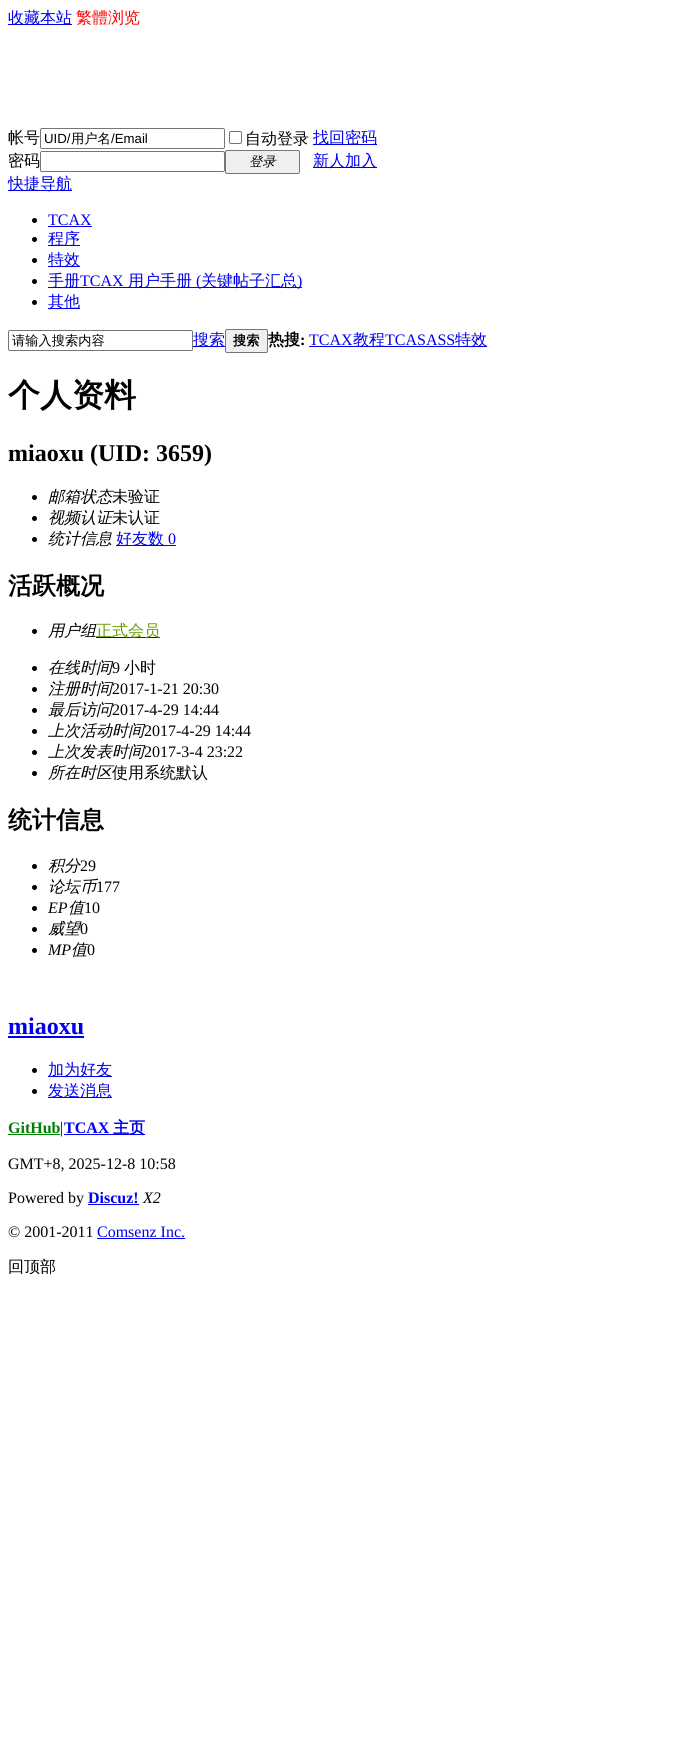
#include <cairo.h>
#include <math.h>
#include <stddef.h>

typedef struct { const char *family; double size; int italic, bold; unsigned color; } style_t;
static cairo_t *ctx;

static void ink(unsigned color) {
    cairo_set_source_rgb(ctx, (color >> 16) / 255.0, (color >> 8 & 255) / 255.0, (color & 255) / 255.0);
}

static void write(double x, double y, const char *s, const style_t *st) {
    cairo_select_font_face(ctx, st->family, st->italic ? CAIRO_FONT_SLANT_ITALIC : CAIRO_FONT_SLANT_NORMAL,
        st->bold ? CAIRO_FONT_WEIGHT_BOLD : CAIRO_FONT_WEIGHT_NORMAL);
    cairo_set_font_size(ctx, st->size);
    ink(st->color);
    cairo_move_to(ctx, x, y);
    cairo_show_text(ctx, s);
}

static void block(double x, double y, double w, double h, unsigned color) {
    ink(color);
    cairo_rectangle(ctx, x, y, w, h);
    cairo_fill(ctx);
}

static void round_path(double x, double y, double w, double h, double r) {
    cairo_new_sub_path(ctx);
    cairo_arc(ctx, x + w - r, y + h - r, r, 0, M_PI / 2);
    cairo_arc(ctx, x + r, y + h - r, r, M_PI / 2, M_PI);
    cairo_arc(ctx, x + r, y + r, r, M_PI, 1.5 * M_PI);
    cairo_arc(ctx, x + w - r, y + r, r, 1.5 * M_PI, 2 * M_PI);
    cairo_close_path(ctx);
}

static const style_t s1 = {"WenQuanYi Zen Hei Medium", 16, 0, 0, 0x0000ee};
static const style_t s2 = {"WenQuanYi Zen Hei Medium", 16, 0, 0, 0xff0000};
static const style_t s3 = {"WenQuanYi Zen Hei Medium", 16, 0, 0, 0x000000};
static const style_t s4 = {"Liberation Sans", 13.25, 0, 0, 0x000000};
static const style_t s5 = {"WenQuanYi Zen Hei Medium", 13.25, 0, 0, 0x000000};
static const style_t s6 = {"WenQuanYi Zen Hei Medium", 13.25, 1, 0, 0x000000};
static const style_t s7 = {"Liberation Serif", 16, 0, 0, 0x0000ee};
static const style_t s8 = {"WenQuanYi Zen Hei", 13.25, 0, 1, 0x000000};
static const style_t s9 = {"WenQuanYi Zen Hei", 16, 0, 1, 0x000000};
static const style_t s10 = {"Liberation Serif", 16, 0, 1, 0x000000};
static const style_t s11 = {"WenQuanYi Zen Hei", 32, 0, 1, 0x000000};
static const style_t s12 = {"Liberation Serif", 24, 0, 1, 0x000000};
static const style_t s13 = {"WenQuanYi Zen Hei Medium", 16, 1, 0, 0x000000};
static const style_t s14 = {"WenQuanYi Zen Hei", 24, 0, 1, 0x000000};
static const style_t s15 = {"WenQuanYi Zen Hei Medium", 16, 0, 0, 0x669900};
static const style_t s16 = {"Liberation Serif", 16, 0, 0, 0x000000};
static const style_t s17 = {"Liberation Serif", 16, 1, 0, 0x000000};
static const style_t s18 = {"Liberation Serif", 24, 0, 1, 0x0000ee};
static const style_t s19 = {"Liberation Serif", 16, 0, 1, 0x008000};
static const style_t s20 = {"Liberation Serif", 16, 0, 1, 0x0000ee};
static const style_t s21 = {"WenQuanYi Zen Hei", 16, 0, 1, 0x0000ee};

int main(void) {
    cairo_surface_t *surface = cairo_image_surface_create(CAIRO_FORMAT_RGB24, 683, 1743);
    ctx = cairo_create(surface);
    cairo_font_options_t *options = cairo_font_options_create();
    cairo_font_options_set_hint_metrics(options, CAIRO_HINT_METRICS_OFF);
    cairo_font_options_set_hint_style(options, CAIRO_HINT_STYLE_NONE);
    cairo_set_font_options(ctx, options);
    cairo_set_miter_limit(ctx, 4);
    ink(0xffffff);
    cairo_paint(ctx);
    block(8, 24, 64, 1, 0x0000ee);
    write(8, 23, "收藏本站", &s1);
    write(76, 23, "繁體浏览", &s2);
    write(8, 143, "帐号", &s3);
    round_path(40.5, 128.5, 184, 20, 1.5);
    ink(0x767676);
    cairo_set_line_width(ctx, 1);
    cairo_stroke(ctx);
    write(44, 143, "UID/", &s4);
    write(71, 143, "用户名", &s5);
    write(111, 143, "/Email", &s4);
    round_path(229.5, 131.5, 12, 12, 1.5);
    ink(0x767676);
    cairo_stroke(ctx);
    write(245, 144, "自动登录", &s3);
    block(313, 144, 64, 1, 0x0000ee);
    write(313, 143, "找回密码", &s1);
    write(8, 166, "密码", &s3);
    round_path(40.5, 151.5, 184, 20, 1.5);
    ink(0x767676);
    cairo_stroke(ctx);
    ink(0xefefef);
    round_path(225.5, 150.5, 74, 23, 1.5);
    cairo_fill_preserve(ctx);
    ink(0x767676);
    cairo_stroke(ctx);
    write(249, 166, "登录", &s6);
    block(313, 167, 64, 1, 0x0000ee);
    write(313, 166, "新人加入", &s1);
    block(8, 190, 64, 1, 0x0000ee);
    write(8, 189, "快捷导航", &s1);
    ink(0x000000);
    cairo_new_path(ctx);
    cairo_arc(ctx, 34.5, 220.5, 2.5, 0, 2 * M_PI);
    cairo_fill(ctx);
    write(48, 225, "TCAX", &s7);
    block(48, 226, 44, 1, 0x0000ee);
    ink(0x000000);
    cairo_new_path(ctx);
    cairo_arc(ctx, 34.5, 239.5, 2.5, 0, 2 * M_PI);
    cairo_fill(ctx);
    block(48, 245, 32, 1, 0x0000ee);
    write(48, 244, "程序", &s1);
    ink(0x000000);
    cairo_new_path(ctx);
    cairo_arc(ctx, 34.5, 260.5, 2.5, 0, 2 * M_PI);
    cairo_fill(ctx);
    block(48, 266, 32, 1, 0x0000ee);
    write(48, 265, "特效", &s1);
    ink(0x000000);
    cairo_new_path(ctx);
    cairo_arc(ctx, 34.5, 281.5, 2.5, 0, 2 * M_PI);
    cairo_fill(ctx);
    block(48, 287, 254, 1, 0x0000ee);
    write(48, 286, "手册", &s1);
    write(80, 286, "TCAX", &s7);
    write(128, 286, "用户手册", &s1);
    write(196, 286, "(", &s7);
    write(201, 286, "关键帖子汇总", &s1);
    write(297, 286, ")", &s7);
    ink(0x000000);
    cairo_new_path(ctx);
    cairo_arc(ctx, 34.5, 302.5, 2.5, 0, 2 * M_PI);
    cairo_fill(ctx);
    block(48, 308, 32, 1, 0x0000ee);
    write(48, 307, "其他", &s1);
    round_path(8.5, 330.5, 184, 20, 1.5);
    ink(0x767676);
    cairo_stroke(ctx);
    write(12, 345, "请输入搜索内容", &s5);
    block(193, 346, 32, 1, 0x0000ee);
    write(193, 345, "搜索", &s1);
    ink(0xefefef);
    round_path(225.5, 329.5, 42, 23, 1.5);
    cairo_fill_preserve(ctx);
    ink(0x767676);
    cairo_stroke(ctx);
    write(233, 345, "搜索", &s8);
    write(268, 345, "热搜", &s9);
    write(300, 345, ":", &s10);
    write(309, 345, "TCAX", &s7);
    block(309, 346, 178, 1, 0x0000ee);
    write(353, 345, "教程", &s1);
    write(385, 345, "TCASASS", &s7);
    write(455, 345, "特效", &s1);
    write(8, 406, "个人资料", &s11);
    write(8, 461, "miaoxu (UID: 3659)", &s12);
    cairo_new_path(ctx);
    cairo_arc(ctx, 34.5, 497.5, 2.5, 0, 2 * M_PI);
    cairo_fill(ctx);
    write(48, 502, "邮箱状态", &s13);
    write(112, 502, "未验证", &s3);
    cairo_new_path(ctx);
    cairo_arc(ctx, 34.5, 518.5, 2.5, 0, 2 * M_PI);
    cairo_fill(ctx);
    write(48, 523, "视频认证", &s13);
    write(112, 523, "未认证", &s3);
    cairo_new_path(ctx);
    cairo_arc(ctx, 34.5, 539.5, 2.5, 0, 2 * M_PI);
    cairo_fill(ctx);
    write(48, 544, "统计信息", &s13);
    block(116, 545, 60, 1, 0x0000ee);
    write(116, 544, "好友数", &s1);
    write(168, 544, "0", &s7);
    write(8, 594, "活跃概况", &s14);
    cairo_new_path(ctx);
    cairo_arc(ctx, 34.5, 631.5, 2.5, 0, 2 * M_PI);
    cairo_fill(ctx);
    write(48, 636, "用户组", &s13);
    block(96, 637, 64, 1, 0x0000ee);
    write(96, 636, "正式会员", &s15);
    ink(0x000000);
    cairo_new_path(ctx);
    cairo_arc(ctx, 34.5, 668.5, 2.5, 0, 2 * M_PI);
    cairo_fill(ctx);
    write(48, 673, "在线时间", &s13);
    write(112, 673, "9", &s16);
    write(124, 673, "小时", &s3);
    cairo_new_path(ctx);
    cairo_arc(ctx, 34.5, 689.5, 2.5, 0, 2 * M_PI);
    cairo_fill(ctx);
    write(48, 694, "注册时间", &s13);
    write(112, 694, "2017-1-21 20:30", &s16);
    cairo_new_path(ctx);
    cairo_arc(ctx, 34.5, 710.5, 2.5, 0, 2 * M_PI);
    cairo_fill(ctx);
    write(48, 715, "最后访问", &s13);
    write(112, 715, "2017-4-29 14:44", &s16);
    cairo_new_path(ctx);
    cairo_arc(ctx, 34.5, 731.5, 2.5, 0, 2 * M_PI);
    cairo_fill(ctx);
    write(48, 736, "上次活动时间", &s13);
    write(144, 736, "2017-4-29 14:44", &s16);
    cairo_new_path(ctx);
    cairo_arc(ctx, 34.5, 752.5, 2.5, 0, 2 * M_PI);
    cairo_fill(ctx);
    write(48, 757, "上次发表时间", &s13);
    write(144, 757, "2017-3-4 23:22", &s16);
    cairo_new_path(ctx);
    cairo_arc(ctx, 34.5, 773.5, 2.5, 0, 2 * M_PI);
    cairo_fill(ctx);
    write(48, 778, "所在时区", &s13);
    write(112, 778, "使用系统默认", &s3);
    write(8, 828, "统计信息", &s14);
    cairo_new_path(ctx);
    cairo_arc(ctx, 34.5, 866.5, 2.5, 0, 2 * M_PI);
    cairo_fill(ctx);
    write(48, 871, "积分", &s13);
    write(80, 871, "29", &s16);
    cairo_new_path(ctx);
    cairo_arc(ctx, 34.5, 887.5, 2.5, 0, 2 * M_PI);
    cairo_fill(ctx);
    write(48, 892, "论坛币", &s13);
    write(96, 892, "177", &s16);
    cairo_new_path(ctx);
    cairo_arc(ctx, 34.5, 908.5, 2.5, 0, 2 * M_PI);
    cairo_fill(ctx);
    write(48, 913, "EP", &s17);
    write(68, 913, "值", &s13);
    write(84, 913, "10", &s16);
    cairo_new_path(ctx);
    cairo_arc(ctx, 34.5, 929.5, 2.5, 0, 2 * M_PI);
    cairo_fill(ctx);
    write(48, 934, "威望", &s13);
    write(80, 934, "0", &s16);
    cairo_new_path(ctx);
    cairo_arc(ctx, 34.5, 950.5, 2.5, 0, 2 * M_PI);
    cairo_fill(ctx);
    write(48, 955, "MP", &s17);
    write(71, 955, "值", &s13);
    write(87, 955, "0", &s16);
    write(8, 1034, "miaoxu", &s18);
    block(8, 1036, 76, 2, 0x0000ee);
    ink(0x000000);
    cairo_new_path(ctx);
    cairo_arc(ctx, 34.5, 1070.5, 2.5, 0, 2 * M_PI);
    cairo_fill(ctx);
    block(48, 1076, 64, 1, 0x0000ee);
    write(48, 1075, "加为好友", &s1);
    ink(0x000000);
    cairo_new_path(ctx);
    cairo_arc(ctx, 34.5, 1091.5, 2.5, 0, 2 * M_PI);
    cairo_fill(ctx);
    block(48, 1097, 64, 1, 0x0000ee);
    write(48, 1096, "发送消息", &s1);
    write(8, 1133, "GitHub", &s19);
    block(8, 1134, 52, 1, 0x008000);
    write(60, 1133, "|", &s16);
    write(64, 1133, "TCAX", &s20);
    block(64, 1134, 81, 1, 0x0000ee);
    write(113, 1133, "主页", &s21);
    write(8, 1169, "GMT+8, 2025-12-8 10:58", &s16);
    write(8, 1203, "Powered by", &s16);
    write(88, 1203, "Discuz!", &s20);
    block(88, 1204, 51, 1, 0x0000ee);
    write(143, 1203, "X2", &s17);
    write(8, 1237, "© 2001-2011", &s16);
    write(97, 1237, "Comsenz Inc.", &s7);
    block(97, 1238, 88, 1, 0x0000ee);
    write(8, 1272, "回顶部", &s3);
    cairo_surface_write_to_png(surface, "screenshot.png");
    cairo_font_options_destroy(options);
    cairo_destroy(ctx);
    cairo_surface_destroy(surface);
    return 0;
}
